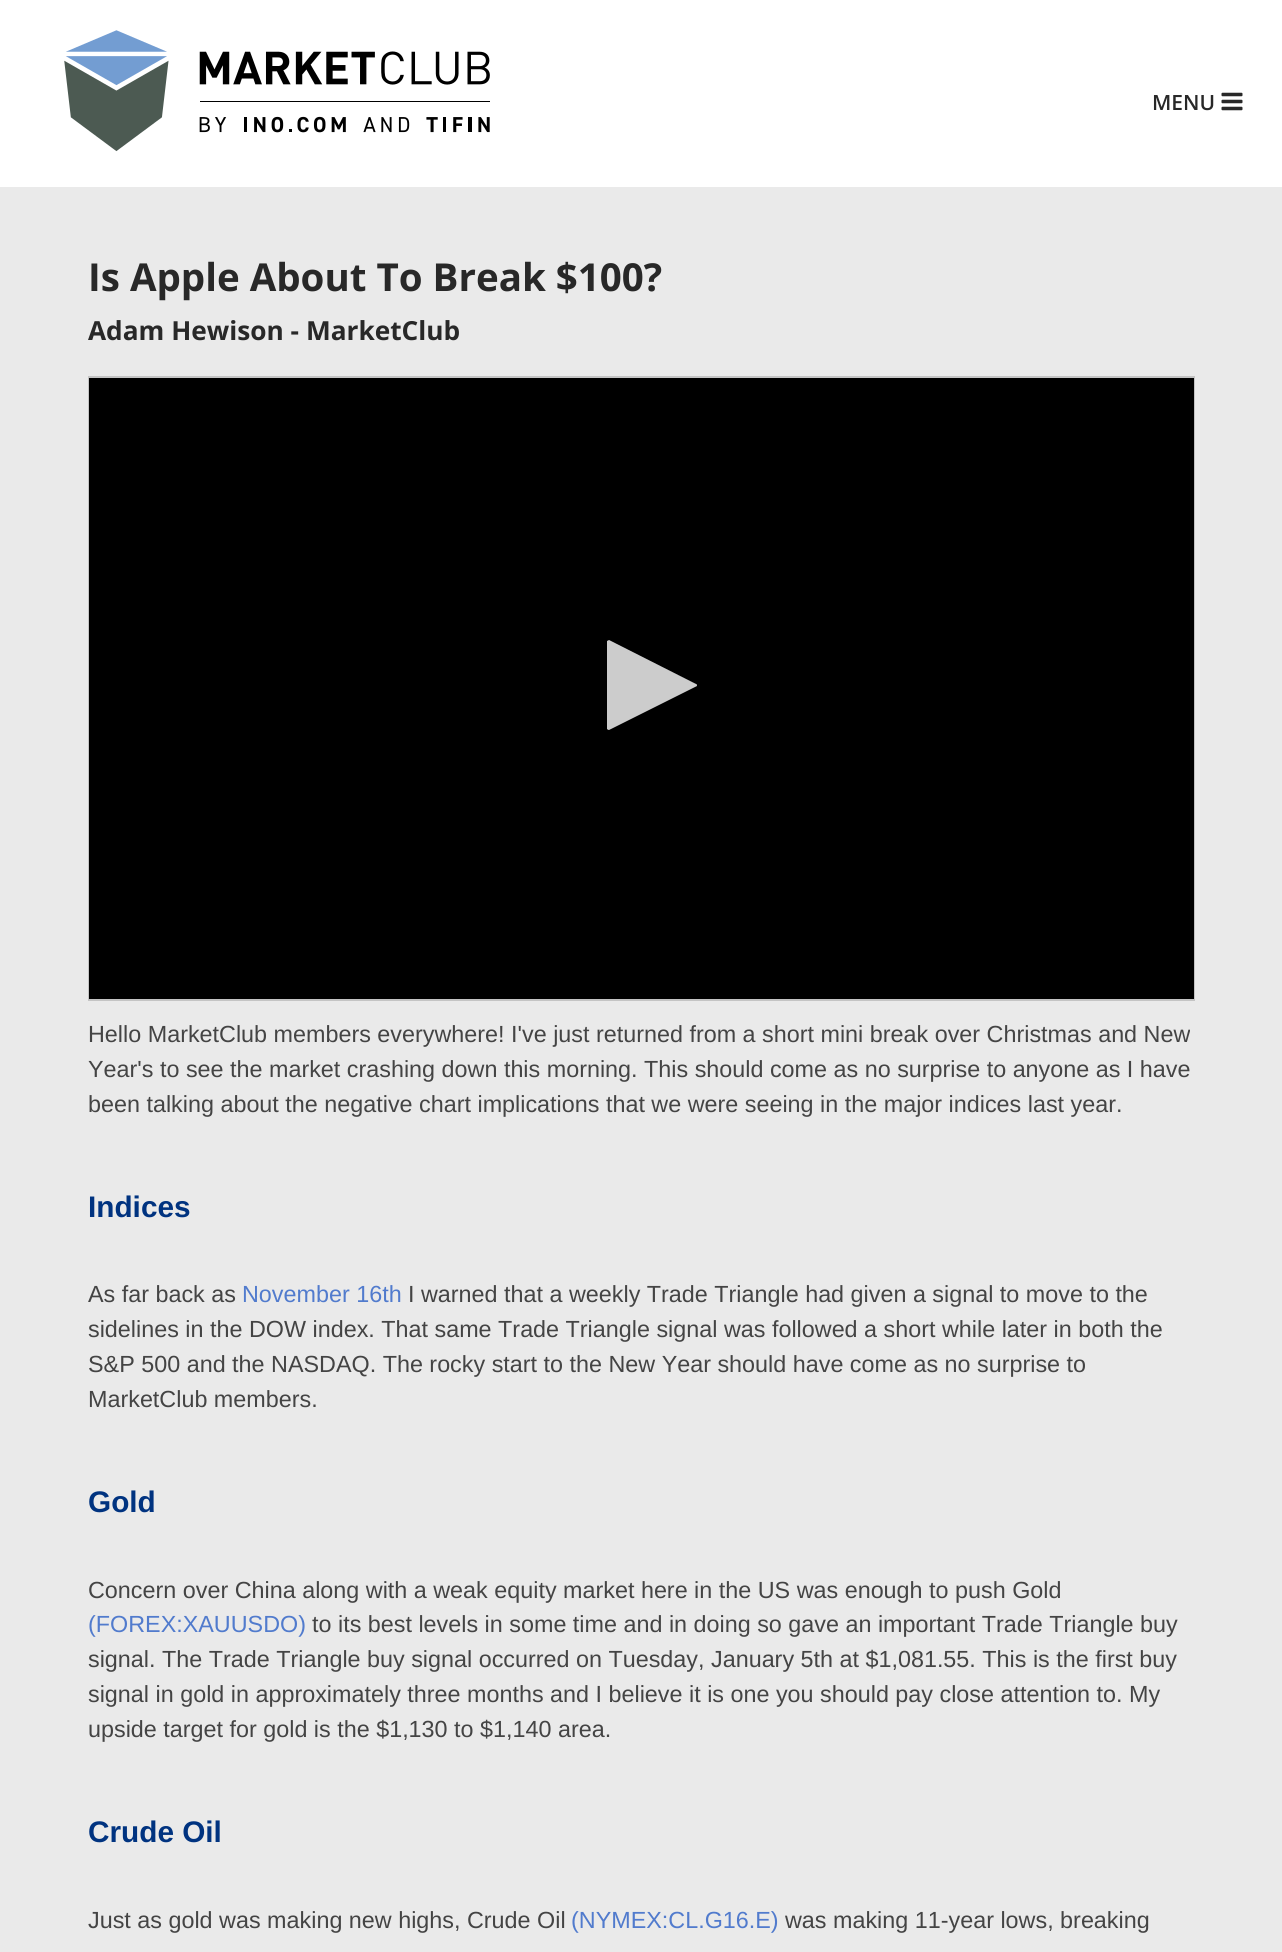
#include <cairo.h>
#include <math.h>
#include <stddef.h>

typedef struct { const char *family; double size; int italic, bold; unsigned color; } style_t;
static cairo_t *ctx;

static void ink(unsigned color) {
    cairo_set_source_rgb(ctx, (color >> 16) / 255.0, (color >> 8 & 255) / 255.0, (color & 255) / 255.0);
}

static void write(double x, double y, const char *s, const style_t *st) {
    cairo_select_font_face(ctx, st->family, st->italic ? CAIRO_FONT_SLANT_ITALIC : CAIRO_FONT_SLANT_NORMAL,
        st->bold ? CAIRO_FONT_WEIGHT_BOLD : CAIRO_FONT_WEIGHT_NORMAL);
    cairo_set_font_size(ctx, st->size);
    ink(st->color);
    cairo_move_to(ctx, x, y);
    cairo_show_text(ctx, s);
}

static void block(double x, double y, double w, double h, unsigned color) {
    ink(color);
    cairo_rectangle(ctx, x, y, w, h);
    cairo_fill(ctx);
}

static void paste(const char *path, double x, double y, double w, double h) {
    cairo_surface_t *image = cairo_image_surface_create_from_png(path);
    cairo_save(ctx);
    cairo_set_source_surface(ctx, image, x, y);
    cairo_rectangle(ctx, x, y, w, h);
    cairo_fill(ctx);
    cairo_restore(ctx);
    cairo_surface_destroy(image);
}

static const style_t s1 = {"Open Sans SemiBold", 21, 0, 0, 0x282828};
static const style_t s2 = {"Open Sans", 38.5, 0, 1, 0x282828};
static const style_t s3 = {"Open Sans", 26.25, 0, 1, 0x282828};
static const style_t s4 = {"Liberation Sans", 23.35, 0, 0, 0x444444};
static const style_t s5 = {"Liberation Sans", 29.75, 0, 1, 0x003380};
static const style_t s6 = {"Liberation Sans", 23.35, 0, 0, 0x517bcd};

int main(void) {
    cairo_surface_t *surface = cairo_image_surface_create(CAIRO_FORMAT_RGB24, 1282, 1952);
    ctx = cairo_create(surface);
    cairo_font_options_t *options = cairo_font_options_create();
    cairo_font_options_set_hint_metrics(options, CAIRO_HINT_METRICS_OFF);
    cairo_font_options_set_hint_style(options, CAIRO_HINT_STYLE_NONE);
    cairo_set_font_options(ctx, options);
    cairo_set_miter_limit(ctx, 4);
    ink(0xeaeaea);
    cairo_paint(ctx);
    block(0, 0, 1282, 187, 0xffffff);
    paste("pic1.png", 64, 30, 426, 122);
    write(1152, 110, "MENU", &s1);
    paste("pic2.png", 1221, 92, 22, 19);
    write(88, 291, "Is Apple About To Break $100?", &s2);
    write(88, 340, "Adam Hewison - MarketClub", &s3);
    cairo_rectangle(ctx, 89, 377, 1105, 623);
    ink(0xc4c4c4);
    cairo_stroke(ctx);
    block(89, 378, 1105, 621, 0x000000);
    ink(0xcccccc);
    cairo_new_path(ctx);
    cairo_move_to(ctx, 609, 730);
    cairo_curve_to(ctx, 609, 730, 608, 730, 607, 729);
    cairo_line_to(ctx, 607, 641);
    cairo_line_to(ctx, 609, 640);
    cairo_line_to(ctx, 696, 684);
    cairo_curve_to(ctx, 697, 684, 697, 685, 697, 686);
    cairo_close_path(ctx);
    cairo_fill(ctx);
    write(88, 1042, "Hello MarketClub members everywhere! I've just returned from a short mini break over Christmas and New", &s4);
    write(88, 1077, "Year's to see the market crashing down this morning. This should come as no surprise to anyone as I have", &s4);
    write(88, 1112, "been talking about the negative chart implications that we were seeing in the major indices last year.", &s4);
    write(88, 1217, "Indices", &s5);
    write(88, 1302, "As far back as", &s4);
    write(242, 1302, "November 16th", &s6);
    write(408, 1302, "I warned that a weekly Trade Triangle had given a signal to move to the", &s4);
    write(88, 1337, "sidelines in the DOW index. That same Trade Triangle signal was followed a short while later in both the", &s4);
    write(88, 1372, "S&P 500 and the NASDAQ. The rocky start to the New Year should have come as no surprise to", &s4);
    write(88, 1407, "MarketClub members.", &s4);
    write(88, 1512, "Gold", &s5);
    write(88, 1598, "Concern over China along with a weak equity market here in the US was enough to push Gold", &s4);
    write(88, 1632, "(FOREX:XAUUSDO)", &s6);
    write(312, 1632, "to its best levels in some time and in doing so gave an important Trade Triangle buy", &s4);
    write(88, 1667, "signal. The Trade Triangle buy signal occurred on Tuesday, January 5th at $1,081.55. This is the first buy", &s4);
    write(88, 1702, "signal in gold in approximately three months and I believe it is one you should pay close attention to. My", &s4);
    write(88, 1737, "upside target for gold is the $1,130 to $1,140 area.", &s4);
    write(88, 1842, "Crude Oil", &s5);
    write(88, 1928, "Just as gold was making new highs, Crude Oil", &s4);
    write(571, 1928, "(NYMEX:CL.G16.E)", &s6);
    write(785, 1928, "was making 11-year lows, breaking", &s4);
    cairo_surface_write_to_png(surface, "screenshot.png");
    cairo_font_options_destroy(options);
    cairo_destroy(ctx);
    cairo_surface_destroy(surface);
    return 0;
}
